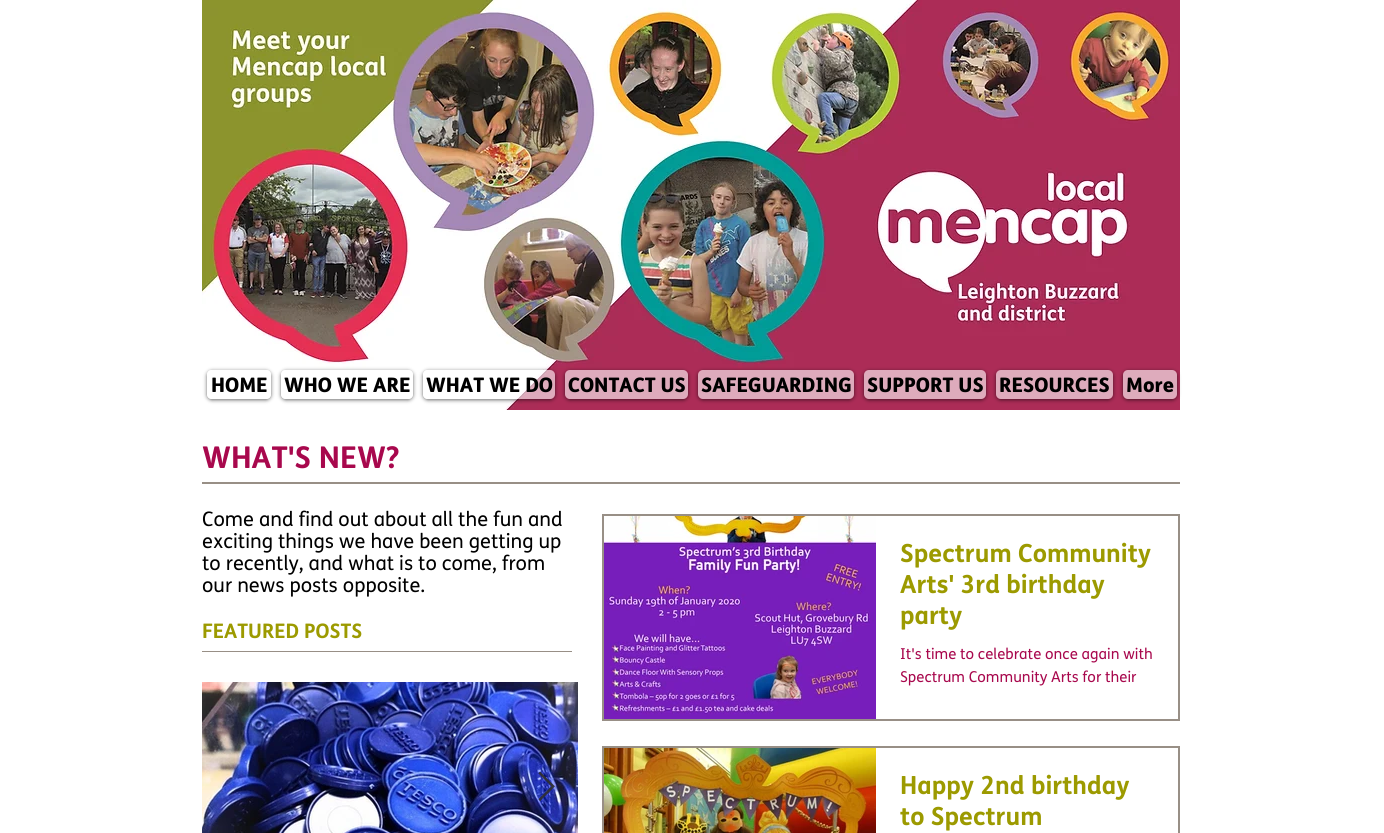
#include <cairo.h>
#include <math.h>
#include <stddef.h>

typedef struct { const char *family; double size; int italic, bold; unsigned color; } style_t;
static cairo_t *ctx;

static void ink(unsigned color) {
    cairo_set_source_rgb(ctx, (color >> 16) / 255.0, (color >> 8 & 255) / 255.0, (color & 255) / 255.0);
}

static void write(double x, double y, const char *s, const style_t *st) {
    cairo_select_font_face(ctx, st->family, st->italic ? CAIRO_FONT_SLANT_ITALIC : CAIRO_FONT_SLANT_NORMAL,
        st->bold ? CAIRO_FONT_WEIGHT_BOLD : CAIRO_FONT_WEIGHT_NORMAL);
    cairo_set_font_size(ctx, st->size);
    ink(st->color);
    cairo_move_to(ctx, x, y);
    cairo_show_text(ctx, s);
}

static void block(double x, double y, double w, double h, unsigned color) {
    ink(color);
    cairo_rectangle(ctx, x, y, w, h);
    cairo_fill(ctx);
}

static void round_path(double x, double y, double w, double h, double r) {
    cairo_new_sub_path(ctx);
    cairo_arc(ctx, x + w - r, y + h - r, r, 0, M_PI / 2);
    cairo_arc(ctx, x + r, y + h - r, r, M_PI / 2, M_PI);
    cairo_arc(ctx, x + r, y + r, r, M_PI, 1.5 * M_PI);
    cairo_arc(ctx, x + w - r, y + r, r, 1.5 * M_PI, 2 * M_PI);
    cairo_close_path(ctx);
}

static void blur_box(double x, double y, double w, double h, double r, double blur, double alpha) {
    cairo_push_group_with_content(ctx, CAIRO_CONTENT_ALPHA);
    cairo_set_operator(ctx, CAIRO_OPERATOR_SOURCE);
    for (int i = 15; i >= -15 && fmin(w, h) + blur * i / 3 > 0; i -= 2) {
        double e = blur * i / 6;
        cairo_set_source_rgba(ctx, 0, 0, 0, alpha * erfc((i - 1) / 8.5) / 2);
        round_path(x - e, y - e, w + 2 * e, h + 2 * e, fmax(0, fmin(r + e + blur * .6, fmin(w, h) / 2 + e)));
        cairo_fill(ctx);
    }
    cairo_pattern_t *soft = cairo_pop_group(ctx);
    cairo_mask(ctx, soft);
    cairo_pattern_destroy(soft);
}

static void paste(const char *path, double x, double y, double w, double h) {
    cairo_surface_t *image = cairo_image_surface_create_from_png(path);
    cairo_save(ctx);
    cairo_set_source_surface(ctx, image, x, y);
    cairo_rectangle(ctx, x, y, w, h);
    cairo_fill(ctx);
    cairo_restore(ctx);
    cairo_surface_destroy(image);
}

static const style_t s1 = {"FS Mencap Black", 20, 0, 0, 0x000000};
static const style_t s2 = {"FS Mencap", 30, 0, 1, 0xa8084d};
static const style_t s3 = {"FS Mencap", 20, 0, 0, 0x000000};
static const style_t s4 = {"FS Mencap", 20, 0, 1, 0x9c9a00};
static const style_t s5 = {"FS Mencap", 25, 0, 1, 0x9c9a00};
static const style_t s6 = {"FS Mencap", 15, 0, 0, 0xa8084d};

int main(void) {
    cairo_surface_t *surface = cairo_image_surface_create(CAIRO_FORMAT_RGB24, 1384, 833);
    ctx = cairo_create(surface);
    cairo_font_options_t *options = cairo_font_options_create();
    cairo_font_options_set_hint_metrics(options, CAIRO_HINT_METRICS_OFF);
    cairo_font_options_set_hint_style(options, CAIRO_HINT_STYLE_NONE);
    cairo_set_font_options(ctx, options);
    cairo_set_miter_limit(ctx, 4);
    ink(0xffffff);
    cairo_paint(ctx);
    paste("pic1.png", 202, 0, 978, 410);
    cairo_save(ctx);
    cairo_set_fill_rule(ctx, CAIRO_FILL_RULE_EVEN_ODD);
    cairo_new_path(ctx);
    cairo_move_to(ctx, 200, 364);
    cairo_line_to(ctx, 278, 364);
    cairo_line_to(ctx, 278, 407);
    cairo_line_to(ctx, 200, 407);
    cairo_close_path(ctx);
    cairo_move_to(ctx, 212, 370);
    cairo_line_to(ctx, 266, 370);
    cairo_curve_to(ctx, 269, 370, 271, 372, 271, 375);
    cairo_line_to(ctx, 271, 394);
    cairo_curve_to(ctx, 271, 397, 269, 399, 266, 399);
    cairo_line_to(ctx, 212, 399);
    cairo_curve_to(ctx, 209, 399, 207, 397, 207, 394);
    cairo_line_to(ctx, 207, 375);
    cairo_curve_to(ctx, 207, 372, 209, 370, 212, 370);
    cairo_close_path(ctx);
    cairo_clip(ctx);
    ink(0x000000);
    blur_box(207, 371, 64, 29, 5, 2, 0.6);
    cairo_restore(ctx);
    cairo_set_source_rgba(ctx, 1, 1, 1, 0.6);
    round_path(207, 370, 64, 29, 5);
    cairo_fill(ctx);
    write(211, 392, "HOME", &s1);
    cairo_save(ctx);
    cairo_set_fill_rule(ctx, CAIRO_FILL_RULE_EVEN_ODD);
    cairo_new_path(ctx);
    cairo_move_to(ctx, 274, 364);
    cairo_line_to(ctx, 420, 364);
    cairo_line_to(ctx, 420, 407);
    cairo_line_to(ctx, 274, 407);
    cairo_close_path(ctx);
    cairo_move_to(ctx, 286, 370);
    cairo_line_to(ctx, 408, 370);
    cairo_curve_to(ctx, 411, 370, 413, 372, 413, 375);
    cairo_line_to(ctx, 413, 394);
    cairo_curve_to(ctx, 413, 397, 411, 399, 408, 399);
    cairo_line_to(ctx, 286, 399);
    cairo_curve_to(ctx, 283, 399, 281, 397, 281, 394);
    cairo_line_to(ctx, 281, 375);
    cairo_curve_to(ctx, 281, 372, 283, 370, 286, 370);
    cairo_close_path(ctx);
    cairo_clip(ctx);
    ink(0x000000);
    blur_box(281, 371, 132, 29, 5, 2, 0.6);
    cairo_restore(ctx);
    cairo_set_source_rgba(ctx, 1, 1, 1, 0.6);
    round_path(281, 370, 132, 29, 5);
    cairo_fill(ctx);
    write(284, 392, "WHO WE ARE", &s1);
    cairo_save(ctx);
    cairo_set_fill_rule(ctx, CAIRO_FILL_RULE_EVEN_ODD);
    cairo_new_path(ctx);
    cairo_move_to(ctx, 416, 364);
    cairo_line_to(ctx, 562, 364);
    cairo_line_to(ctx, 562, 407);
    cairo_line_to(ctx, 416, 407);
    cairo_close_path(ctx);
    cairo_move_to(ctx, 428, 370);
    cairo_line_to(ctx, 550, 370);
    cairo_curve_to(ctx, 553, 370, 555, 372, 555, 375);
    cairo_line_to(ctx, 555, 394);
    cairo_curve_to(ctx, 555, 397, 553, 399, 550, 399);
    cairo_line_to(ctx, 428, 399);
    cairo_curve_to(ctx, 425, 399, 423, 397, 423, 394);
    cairo_line_to(ctx, 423, 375);
    cairo_curve_to(ctx, 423, 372, 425, 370, 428, 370);
    cairo_close_path(ctx);
    cairo_clip(ctx);
    ink(0x000000);
    blur_box(423, 371, 132, 29, 5, 2, 0.6);
    cairo_restore(ctx);
    cairo_set_source_rgba(ctx, 1, 1, 1, 0.6);
    round_path(423, 370, 132, 29, 5);
    cairo_fill(ctx);
    write(426, 392, "WHAT WE DO", &s1);
    cairo_save(ctx);
    cairo_set_fill_rule(ctx, CAIRO_FILL_RULE_EVEN_ODD);
    cairo_new_path(ctx);
    cairo_move_to(ctx, 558, 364);
    cairo_line_to(ctx, 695, 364);
    cairo_line_to(ctx, 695, 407);
    cairo_line_to(ctx, 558, 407);
    cairo_close_path(ctx);
    cairo_move_to(ctx, 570, 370);
    cairo_line_to(ctx, 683, 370);
    cairo_curve_to(ctx, 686, 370, 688, 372, 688, 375);
    cairo_line_to(ctx, 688, 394);
    cairo_curve_to(ctx, 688, 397, 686, 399, 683, 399);
    cairo_line_to(ctx, 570, 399);
    cairo_curve_to(ctx, 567, 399, 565, 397, 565, 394);
    cairo_line_to(ctx, 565, 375);
    cairo_curve_to(ctx, 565, 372, 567, 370, 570, 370);
    cairo_close_path(ctx);
    cairo_clip(ctx);
    ink(0x000000);
    blur_box(565, 371, 123, 29, 5, 2, 0.6);
    cairo_restore(ctx);
    cairo_set_source_rgba(ctx, 1, 1, 1, 0.6);
    round_path(565, 370, 123, 29, 5);
    cairo_fill(ctx);
    write(568, 392, "CONTACT US", &s1);
    cairo_save(ctx);
    cairo_set_fill_rule(ctx, CAIRO_FILL_RULE_EVEN_ODD);
    cairo_new_path(ctx);
    cairo_move_to(ctx, 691, 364);
    cairo_line_to(ctx, 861, 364);
    cairo_line_to(ctx, 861, 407);
    cairo_line_to(ctx, 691, 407);
    cairo_close_path(ctx);
    cairo_move_to(ctx, 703, 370);
    cairo_line_to(ctx, 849, 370);
    cairo_curve_to(ctx, 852, 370, 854, 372, 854, 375);
    cairo_line_to(ctx, 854, 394);
    cairo_curve_to(ctx, 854, 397, 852, 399, 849, 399);
    cairo_line_to(ctx, 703, 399);
    cairo_curve_to(ctx, 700, 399, 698, 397, 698, 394);
    cairo_line_to(ctx, 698, 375);
    cairo_curve_to(ctx, 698, 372, 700, 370, 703, 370);
    cairo_close_path(ctx);
    cairo_clip(ctx);
    ink(0x000000);
    blur_box(698, 371, 156, 29, 5, 2, 0.6);
    cairo_restore(ctx);
    cairo_set_source_rgba(ctx, 1, 1, 1, 0.6);
    round_path(698, 370, 156, 29, 5);
    cairo_fill(ctx);
    write(701, 392, "SAFEGUARDING", &s1);
    cairo_save(ctx);
    cairo_set_fill_rule(ctx, CAIRO_FILL_RULE_EVEN_ODD);
    cairo_new_path(ctx);
    cairo_move_to(ctx, 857, 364);
    cairo_line_to(ctx, 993, 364);
    cairo_line_to(ctx, 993, 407);
    cairo_line_to(ctx, 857, 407);
    cairo_close_path(ctx);
    cairo_move_to(ctx, 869, 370);
    cairo_line_to(ctx, 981, 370);
    cairo_curve_to(ctx, 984, 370, 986, 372, 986, 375);
    cairo_line_to(ctx, 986, 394);
    cairo_curve_to(ctx, 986, 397, 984, 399, 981, 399);
    cairo_line_to(ctx, 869, 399);
    cairo_curve_to(ctx, 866, 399, 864, 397, 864, 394);
    cairo_line_to(ctx, 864, 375);
    cairo_curve_to(ctx, 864, 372, 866, 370, 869, 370);
    cairo_close_path(ctx);
    cairo_clip(ctx);
    ink(0x000000);
    blur_box(864, 371, 122, 29, 5, 2, 0.6);
    cairo_restore(ctx);
    cairo_set_source_rgba(ctx, 1, 1, 1, 0.6);
    round_path(864, 370, 122, 29, 5);
    cairo_fill(ctx);
    write(867, 392, "SUPPORT US", &s1);
    cairo_save(ctx);
    cairo_set_fill_rule(ctx, CAIRO_FILL_RULE_EVEN_ODD);
    cairo_new_path(ctx);
    cairo_move_to(ctx, 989, 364);
    cairo_line_to(ctx, 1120, 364);
    cairo_line_to(ctx, 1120, 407);
    cairo_line_to(ctx, 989, 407);
    cairo_close_path(ctx);
    cairo_move_to(ctx, 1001, 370);
    cairo_line_to(ctx, 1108, 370);
    cairo_curve_to(ctx, 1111, 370, 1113, 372, 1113, 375);
    cairo_line_to(ctx, 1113, 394);
    cairo_curve_to(ctx, 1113, 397, 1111, 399, 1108, 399);
    cairo_line_to(ctx, 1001, 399);
    cairo_curve_to(ctx, 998, 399, 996, 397, 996, 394);
    cairo_line_to(ctx, 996, 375);
    cairo_curve_to(ctx, 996, 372, 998, 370, 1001, 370);
    cairo_close_path(ctx);
    cairo_clip(ctx);
    ink(0x000000);
    blur_box(996, 371, 117, 29, 5, 2, 0.6);
    cairo_restore(ctx);
    cairo_set_source_rgba(ctx, 1, 1, 1, 0.6);
    round_path(996, 370, 117, 29, 5);
    cairo_fill(ctx);
    write(999, 392, "RESOURCES", &s1);
    cairo_save(ctx);
    cairo_set_fill_rule(ctx, CAIRO_FILL_RULE_EVEN_ODD);
    cairo_new_path(ctx);
    cairo_move_to(ctx, 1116, 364);
    cairo_line_to(ctx, 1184, 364);
    cairo_line_to(ctx, 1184, 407);
    cairo_line_to(ctx, 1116, 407);
    cairo_close_path(ctx);
    cairo_move_to(ctx, 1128, 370);
    cairo_line_to(ctx, 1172, 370);
    cairo_curve_to(ctx, 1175, 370, 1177, 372, 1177, 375);
    cairo_line_to(ctx, 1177, 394);
    cairo_curve_to(ctx, 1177, 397, 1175, 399, 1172, 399);
    cairo_line_to(ctx, 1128, 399);
    cairo_curve_to(ctx, 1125, 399, 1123, 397, 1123, 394);
    cairo_line_to(ctx, 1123, 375);
    cairo_curve_to(ctx, 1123, 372, 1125, 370, 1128, 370);
    cairo_close_path(ctx);
    cairo_clip(ctx);
    ink(0x000000);
    blur_box(1123, 371, 54, 29, 5, 2, 0.6);
    cairo_restore(ctx);
    cairo_set_source_rgba(ctx, 1, 1, 1, 0.6);
    round_path(1123, 370, 54, 29, 5);
    cairo_fill(ctx);
    write(1126, 392, "More", &s1);
    write(202, 468, "WHAT'S NEW?", &s2);
    block(202, 482, 978, 2, 0x988f86);
    write(202, 526, "Come and find out about all the fun and", &s3);
    write(202, 548, "exciting things we have been getting up", &s3);
    write(202, 570, "to recently, and what is to come, from", &s3);
    write(202, 592, "our news posts opposite.", &s3);
    write(202, 638, "FEATURED POSTS", &s4);
    cairo_rectangle(ctx, 603, 515, 576, 205);
    ink(0x988f86);
    cairo_stroke(ctx);
    paste("pic2.png", 604, 516, 272, 203);
    write(900, 562, "Spectrum Community", &s5);
    write(900, 593, "Arts' 3rd birthday", &s5);
    write(900, 624, "party", &s5);
    write(900, 659, "It's time to celebrate once again with", &s6);
    write(900, 682, "Spectrum Community Arts for their", &s6);
    cairo_rectangle(ctx, 603, 747, 576, 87);
    ink(0x988f86);
    cairo_stroke(ctx);
    paste("pic3.png", 604, 748, 272, 85);
    write(900, 794, "Happy 2nd birthday", &s5);
    write(900, 825, "to Spectrum", &s5);
    block(202, 651, 370, 1, 0x988f86);
    paste("pic4.png", 202, 682, 376, 151);
    paste("pic5.png", 538, 772, 17, 29);
    cairo_surface_write_to_png(surface, "screenshot.png");
    cairo_font_options_destroy(options);
    cairo_destroy(ctx);
    cairo_surface_destroy(surface);
    return 0;
}
